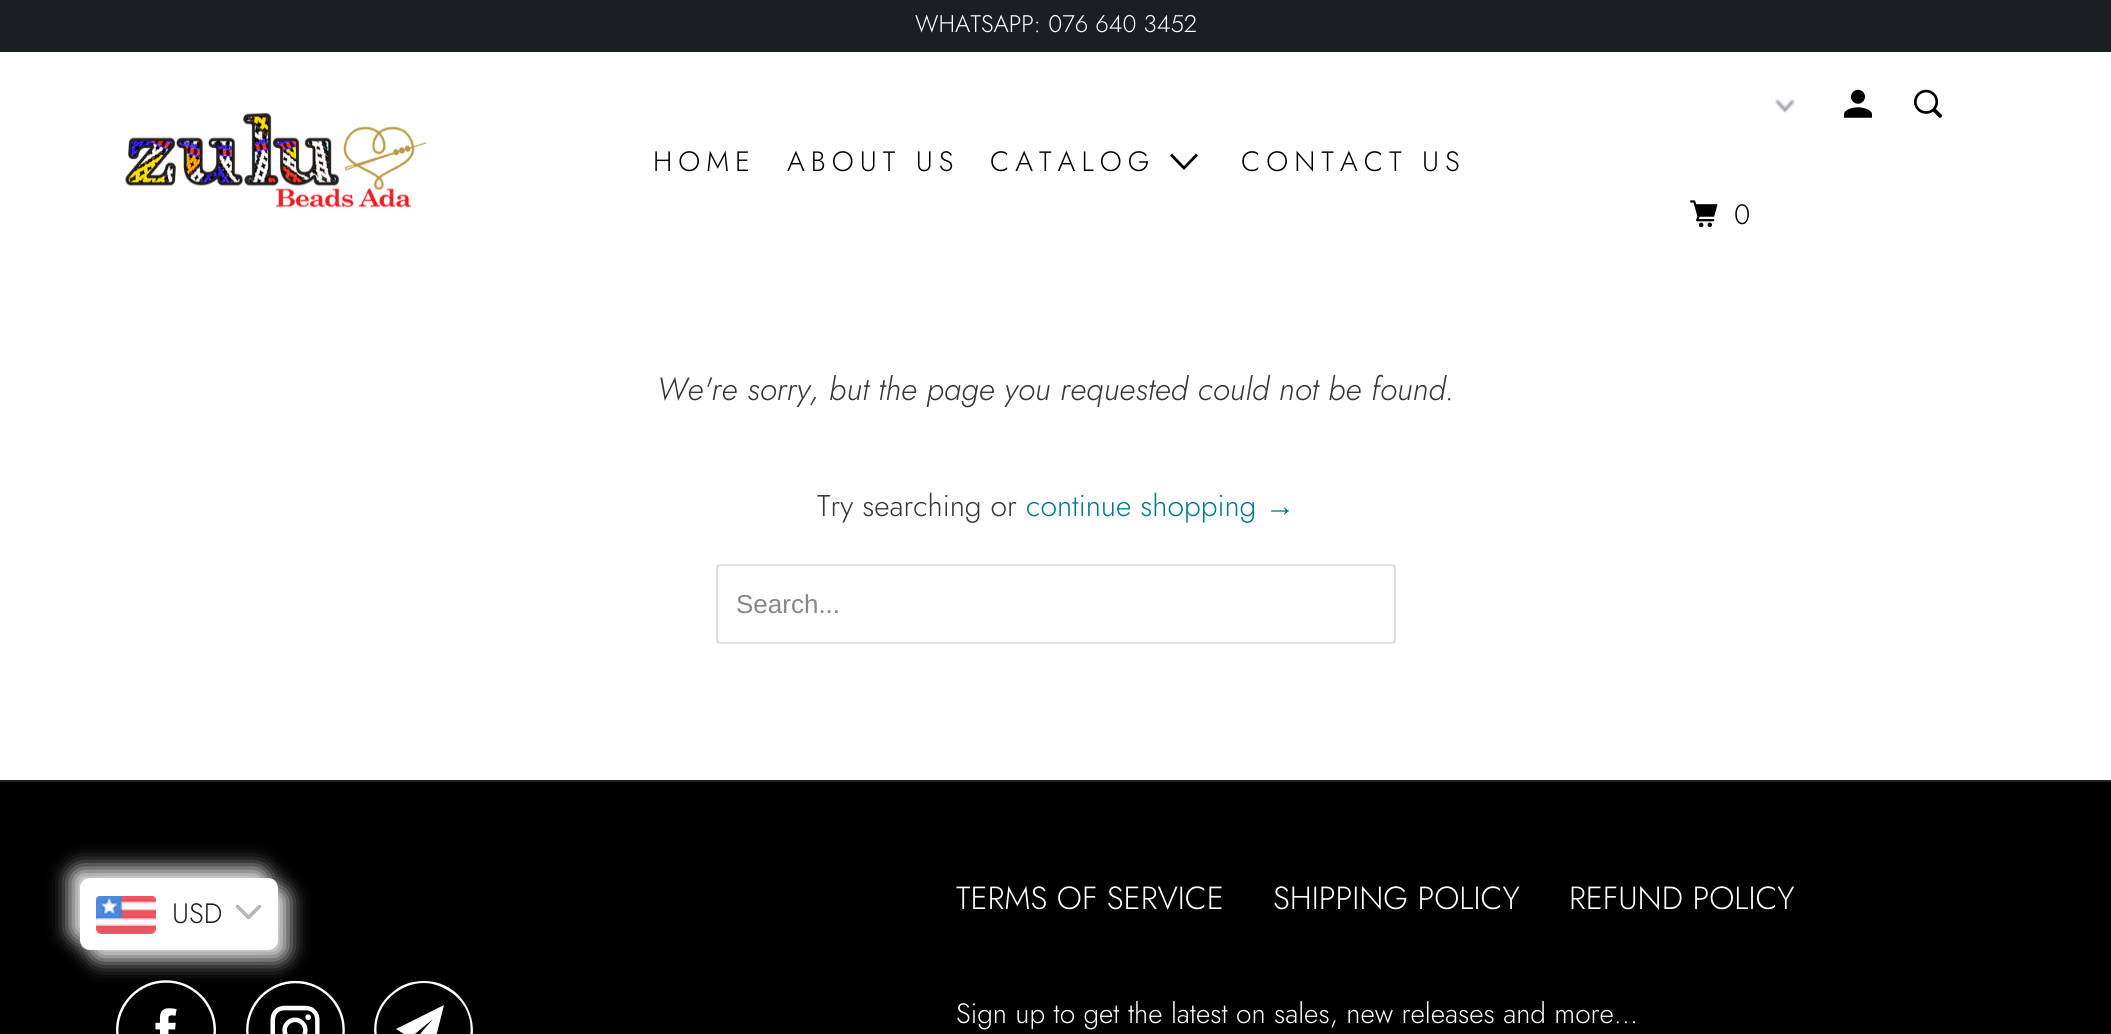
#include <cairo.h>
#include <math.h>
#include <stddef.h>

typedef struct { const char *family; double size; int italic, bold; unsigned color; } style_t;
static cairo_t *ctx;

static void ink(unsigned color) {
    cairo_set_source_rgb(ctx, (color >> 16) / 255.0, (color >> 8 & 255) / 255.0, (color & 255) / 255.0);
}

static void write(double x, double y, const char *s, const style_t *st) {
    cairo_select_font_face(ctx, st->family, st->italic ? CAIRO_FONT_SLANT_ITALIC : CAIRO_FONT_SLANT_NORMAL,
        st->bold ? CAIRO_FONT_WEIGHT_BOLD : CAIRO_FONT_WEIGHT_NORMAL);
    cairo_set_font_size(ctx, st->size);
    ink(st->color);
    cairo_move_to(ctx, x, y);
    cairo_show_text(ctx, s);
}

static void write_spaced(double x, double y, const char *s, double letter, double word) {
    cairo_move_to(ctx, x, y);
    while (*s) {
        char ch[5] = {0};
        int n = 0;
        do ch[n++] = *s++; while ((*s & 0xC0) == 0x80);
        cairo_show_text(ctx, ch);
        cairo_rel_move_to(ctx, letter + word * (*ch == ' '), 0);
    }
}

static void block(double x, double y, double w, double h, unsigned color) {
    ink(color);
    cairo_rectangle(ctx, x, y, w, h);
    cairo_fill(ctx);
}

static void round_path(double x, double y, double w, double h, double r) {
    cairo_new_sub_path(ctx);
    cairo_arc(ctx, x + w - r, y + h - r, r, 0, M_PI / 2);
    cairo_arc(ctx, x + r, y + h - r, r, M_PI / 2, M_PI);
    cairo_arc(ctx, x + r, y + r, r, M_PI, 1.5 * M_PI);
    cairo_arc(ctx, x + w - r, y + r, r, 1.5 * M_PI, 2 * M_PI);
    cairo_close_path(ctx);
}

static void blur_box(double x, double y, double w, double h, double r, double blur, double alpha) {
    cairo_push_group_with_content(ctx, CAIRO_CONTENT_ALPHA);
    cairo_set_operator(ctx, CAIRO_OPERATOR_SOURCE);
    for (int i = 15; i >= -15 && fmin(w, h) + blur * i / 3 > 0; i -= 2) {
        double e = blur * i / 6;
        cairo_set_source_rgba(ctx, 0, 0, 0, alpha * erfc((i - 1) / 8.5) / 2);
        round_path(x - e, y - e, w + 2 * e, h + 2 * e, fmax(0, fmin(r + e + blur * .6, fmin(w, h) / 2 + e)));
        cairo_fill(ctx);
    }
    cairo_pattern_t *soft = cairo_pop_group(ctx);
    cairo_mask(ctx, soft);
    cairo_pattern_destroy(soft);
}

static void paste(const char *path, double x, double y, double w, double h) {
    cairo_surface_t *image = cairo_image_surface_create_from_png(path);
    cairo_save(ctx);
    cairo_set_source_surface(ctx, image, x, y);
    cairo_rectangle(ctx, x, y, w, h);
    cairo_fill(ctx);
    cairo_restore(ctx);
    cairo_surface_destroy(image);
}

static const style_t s1 = {"Jost Light", 28, 0, 0, 0x1e1e1e};
static const style_t s2 = {"Jost Light", 24, 0, 0, 0xffffff};
static const style_t s3 = {"Jost Light", 32, 1, 0, 0x363636};
static const style_t s4 = {"Jost Light", 30, 0, 0, 0x363636};
static const style_t s5 = {"Jost Light", 30, 0, 0, 0x007a87};
static const style_t s6 = {"Liberation Sans", 30, 0, 0, 0x007a87};
static const style_t s7 = {"Liberation Sans", 26, 0, 0, 0x888888};
static const style_t s8 = {"Jost Light", 32, 0, 0, 0xffffff};
static const style_t s9 = {"Jost Light", 28, 0, 0, 0xffffff};

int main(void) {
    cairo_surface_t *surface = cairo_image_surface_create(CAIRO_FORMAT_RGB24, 2111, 1034);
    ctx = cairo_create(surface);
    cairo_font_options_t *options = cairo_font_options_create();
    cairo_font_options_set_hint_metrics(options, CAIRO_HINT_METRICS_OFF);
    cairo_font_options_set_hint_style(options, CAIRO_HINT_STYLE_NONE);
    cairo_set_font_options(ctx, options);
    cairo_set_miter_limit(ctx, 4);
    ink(0xffffff);
    cairo_paint(ctx);
    block(0, 782, 2111, 252, 0x000000);
    ink(0xe8e8e8);
    blur_box(70, 868, 198, 72, 10, 10, 1);
    paste("pic7.png", 116, 980, 100, 54);
    paste("pic8.png", 246, 980, 99, 54);
    blur_box(90, 888, 198, 72, 10, 10, 1);
    ink(0xffffff);
    round_path(80, 878, 198, 72, 10);
    cairo_fill(ctx);
    paste("pic1.png", 96, 896, 60, 38);
    write(172, 923, "USD", &s1);
    cairo_new_path(ctx);
    cairo_move_to(ctx, 237.5, 906.5);
    cairo_line_to(ctx, 248.5, 917.5);
    cairo_line_to(ctx, 259.5, 906.5);
    ink(0xb7b7b7);
    cairo_set_line_width(ctx, 3.6);
    cairo_set_line_cap(ctx, CAIRO_LINE_CAP_ROUND);
    cairo_set_line_join(ctx, CAIRO_LINE_JOIN_ROUND);
    cairo_stroke(ctx);
    block(0, 0, 2111, 52, 0x1b1f23);
    write(915, 32, "WHATSAPP: 076 640 3452", &s2);
    paste("pic2.png", 125, 112, 302, 96);
    cairo_set_font_size(ctx, 28);
    ink(0x000000);
    write_spaced(653, 171, "HOME", 6, 0);
    write_spaced(787, 171, "ABOUT US", 6, 0);
    write_spaced(990, 171, "CATALOG", 6, 0);
    cairo_new_path(ctx);
    cairo_move_to(ctx, 1177, 163);
    cairo_line_to(ctx, 1170, 155.5);
    cairo_line_to(ctx, 1172, 153.5);
    cairo_line_to(ctx, 1184, 166);
    cairo_line_to(ctx, 1196, 153.5);
    cairo_line_to(ctx, 1198, 155.5);
    cairo_line_to(ctx, 1184, 170);
    cairo_close_path(ctx);
    cairo_fill(ctx);
    write_spaced(1241, 171, "CONTACT US", 6, 0);
    paste("pic3.png", 1775, 99, 20, 14);
    paste("pic4.png", 1844, 89, 28, 29);
    paste("pic5.png", 1914, 89, 28, 29);
    paste("pic6.png", 1690, 200, 28, 28);
    write_spaced(1734, 224, "0", 6, 0);
    write(657, 400, "We're sorry, but the page you requested could not be found.", &s3);
    write(817, 516, "Try searching or", &s4);
    write(1026, 516, "continue shopping", &s5);
    write(1265, 516, "→", &s6);
    round_path(717, 565, 678, 78, 3);
    ink(0xdfdfdf);
    cairo_set_line_width(ctx, 2);
    cairo_set_line_cap(ctx, CAIRO_LINE_CAP_BUTT);
    cairo_set_line_join(ctx, CAIRO_LINE_JOIN_MITER);
    cairo_stroke(ctx);
    write(736, 613, "Search...", &s7);
    block(0, 780, 2111, 2, 0x1b1f23);
    ink(0xffffff);
    cairo_new_path(ctx);
    cairo_move_to(ctx, 432, 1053);
    cairo_line_to(ctx, 422, 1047);
    cairo_line_to(ctx, 414, 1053);
    cairo_line_to(ctx, 414, 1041);
    cairo_line_to(ctx, 433, 1019);
    cairo_line_to(ctx, 410, 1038);
    cairo_line_to(ctx, 396, 1029);
    cairo_line_to(ctx, 444, 1005);
    cairo_close_path(ctx);
    cairo_move_to(ctx, 424, 983);
    cairo_curve_to(ctx, 413, 983, 403, 987, 395, 993);
    cairo_curve_to(ctx, 359, 1020, 379, 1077, 424, 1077);
    cairo_curve_to(ctx, 468, 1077, 488, 1019, 452, 993);
    cairo_curve_to(ctx, 443, 987, 434, 983, 424, 983);
    cairo_close_path(ctx);
    cairo_move_to(ctx, 424, 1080);
    cairo_curve_to(ctx, 376, 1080, 356, 1019, 394, 991);
    cairo_curve_to(ctx, 402, 984, 413, 981, 424, 981);
    cairo_curve_to(ctx, 471, 981, 491, 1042, 453, 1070);
    cairo_curve_to(ctx, 444, 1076, 434, 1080, 424, 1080);
    cairo_close_path(ctx);
    cairo_fill(ctx);
    write(956, 909, "TERMS OF SERVICE", &s8);
    write(1273, 909, "SHIPPING POLICY", &s8);
    write(1569, 909, "REFUND POLICY", &s8);
    write(956, 1023, "Sign up to get the latest on sales, new releases and more…", &s9);
    cairo_surface_write_to_png(surface, "screenshot.png");
    cairo_font_options_destroy(options);
    cairo_destroy(ctx);
    cairo_surface_destroy(surface);
    return 0;
}
